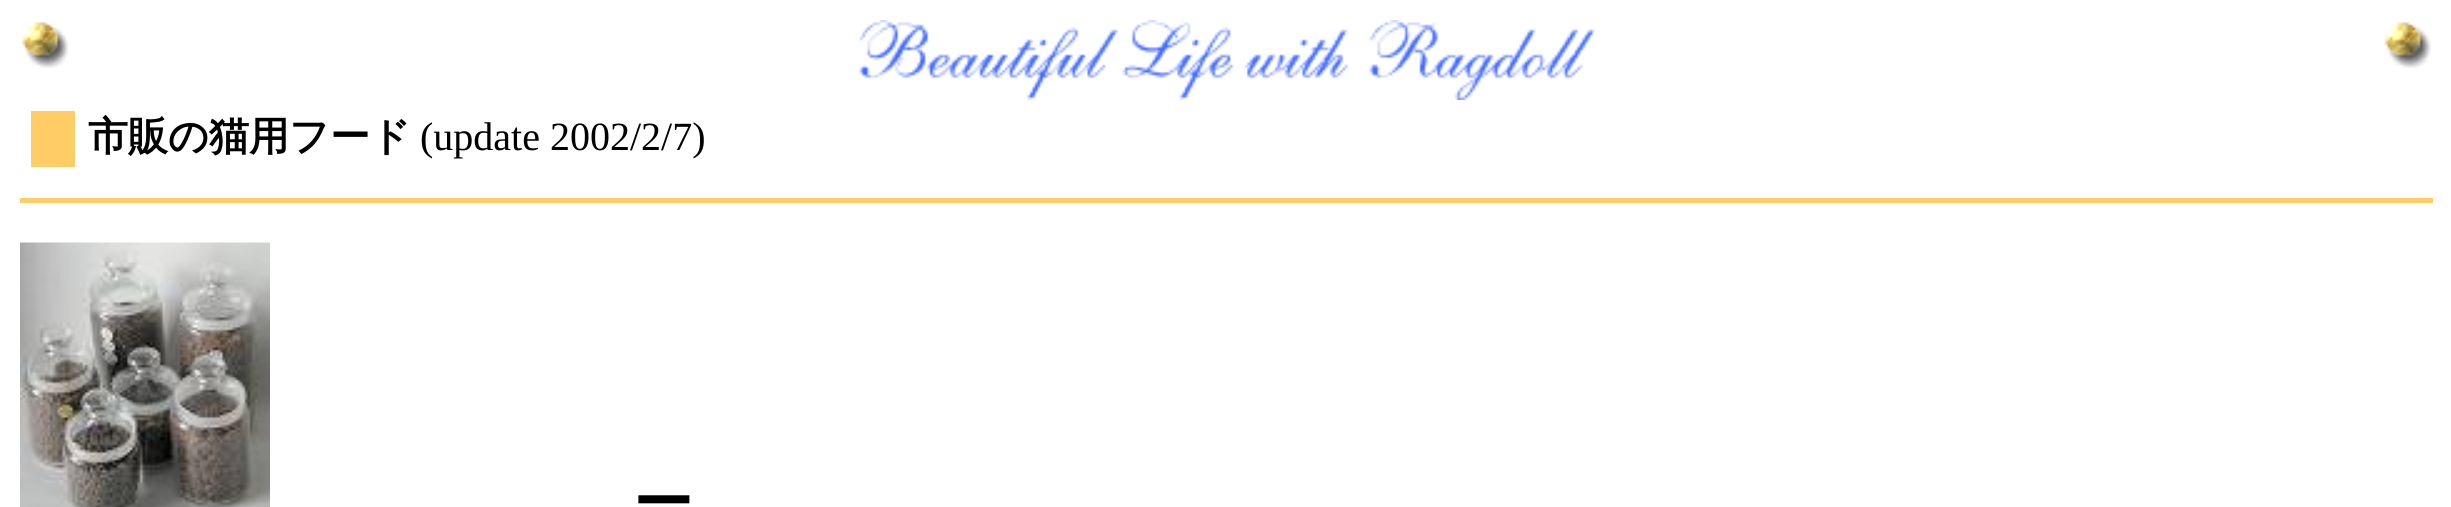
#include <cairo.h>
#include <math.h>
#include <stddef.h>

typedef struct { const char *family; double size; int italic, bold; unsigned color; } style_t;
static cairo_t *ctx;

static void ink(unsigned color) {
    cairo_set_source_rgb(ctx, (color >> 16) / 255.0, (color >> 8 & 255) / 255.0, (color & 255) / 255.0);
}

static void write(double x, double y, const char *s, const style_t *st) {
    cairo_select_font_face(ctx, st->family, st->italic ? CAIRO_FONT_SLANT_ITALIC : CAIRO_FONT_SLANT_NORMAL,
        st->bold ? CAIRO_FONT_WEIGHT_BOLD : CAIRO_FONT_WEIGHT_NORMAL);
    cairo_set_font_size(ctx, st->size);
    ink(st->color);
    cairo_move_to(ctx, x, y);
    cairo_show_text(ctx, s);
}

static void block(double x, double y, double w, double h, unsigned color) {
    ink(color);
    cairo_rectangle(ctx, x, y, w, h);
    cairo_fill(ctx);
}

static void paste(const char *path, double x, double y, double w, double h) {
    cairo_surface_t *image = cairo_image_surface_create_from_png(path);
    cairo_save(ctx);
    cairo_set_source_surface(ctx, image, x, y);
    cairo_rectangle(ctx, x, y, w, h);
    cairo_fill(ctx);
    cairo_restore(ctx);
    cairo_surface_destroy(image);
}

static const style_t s1 = {"WenQuanYi Zen Hei", 40, 0, 1, 0x000000};
static const style_t s2 = {"Liberation Serif", 40, 0, 0, 0x000000};
static const style_t s3 = {"WenQuanYi Zen Hei", 60, 0, 1, 0x000000};

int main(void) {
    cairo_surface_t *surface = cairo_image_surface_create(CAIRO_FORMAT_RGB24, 2451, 507);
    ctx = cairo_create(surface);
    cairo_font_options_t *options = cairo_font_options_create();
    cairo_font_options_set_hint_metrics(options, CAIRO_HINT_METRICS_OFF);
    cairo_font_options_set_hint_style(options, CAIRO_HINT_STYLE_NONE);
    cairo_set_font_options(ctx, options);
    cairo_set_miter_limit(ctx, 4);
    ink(0xffffff);
    cairo_paint(ctx);
    paste("pic1.png", 21, 21, 48, 47);
    paste("pic2.png", 859, 20, 737, 80);
    paste("pic3.png", 2384, 21, 47, 47);
    block(31, 111, 44, 56, 0xffcc66);
    write(88, 150, "市販の猫用フード", &s1);
    write(420, 150, "(update 2002/2/7)", &s2);
    block(20, 198, 2413, 5, 0xffcc66);
    paste("pic4.png", 20, 242, 250, 265);
    write(633, 523, "ー", &s3);
    cairo_surface_write_to_png(surface, "screenshot.png");
    cairo_font_options_destroy(options);
    cairo_destroy(ctx);
    cairo_surface_destroy(surface);
    return 0;
}
